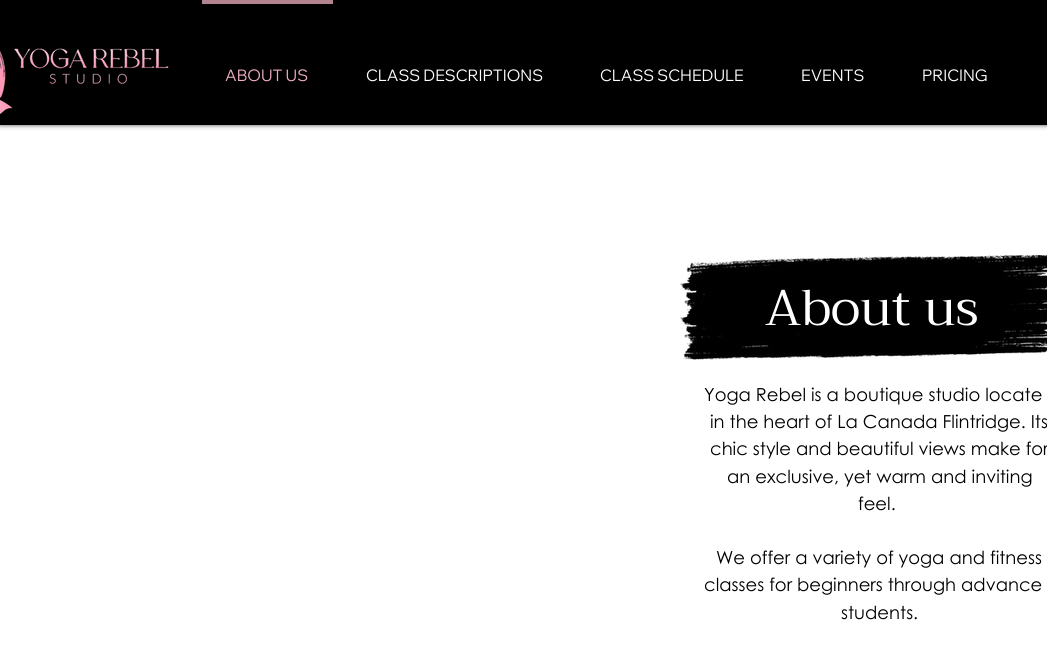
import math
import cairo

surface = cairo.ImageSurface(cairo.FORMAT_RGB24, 1047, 656)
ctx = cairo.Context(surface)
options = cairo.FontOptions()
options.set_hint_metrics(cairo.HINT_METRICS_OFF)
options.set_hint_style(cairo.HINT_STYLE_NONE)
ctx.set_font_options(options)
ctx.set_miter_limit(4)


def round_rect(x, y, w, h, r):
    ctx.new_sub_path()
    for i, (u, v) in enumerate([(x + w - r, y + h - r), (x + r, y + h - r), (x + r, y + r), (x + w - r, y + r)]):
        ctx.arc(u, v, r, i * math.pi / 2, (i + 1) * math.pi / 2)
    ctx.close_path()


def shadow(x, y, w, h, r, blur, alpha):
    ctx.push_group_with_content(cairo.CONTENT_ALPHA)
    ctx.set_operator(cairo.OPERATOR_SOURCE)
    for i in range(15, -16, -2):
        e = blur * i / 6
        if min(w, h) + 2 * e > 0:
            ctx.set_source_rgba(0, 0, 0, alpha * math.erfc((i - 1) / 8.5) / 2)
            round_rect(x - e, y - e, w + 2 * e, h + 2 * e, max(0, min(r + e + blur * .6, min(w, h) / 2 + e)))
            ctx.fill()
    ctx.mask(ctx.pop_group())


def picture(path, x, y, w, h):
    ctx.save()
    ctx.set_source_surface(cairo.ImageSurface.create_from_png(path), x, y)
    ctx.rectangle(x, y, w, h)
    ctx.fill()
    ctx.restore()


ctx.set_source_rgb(1, 1, 1)
ctx.paint()
ctx.set_source_rgb(0, 0, 0)
shadow(0, 0, 1047, 125, 0, 2.5, 0.7)
ctx.set_source_rgb(0, 0, 0)
ctx.rectangle(0, 0, 1047, 125)
ctx.fill()
picture("img1.png", 0, 50, 12, 64)
picture("img2.png", 14, 48, 155, 36)
ctx.set_source_rgb(0.702, 0.514, 0.565)
ctx.rectangle(202, 0, 131, 4)
ctx.fill()
ctx.select_font_face("Wix Madefor Display")
ctx.set_font_size(16)
ctx.set_source_rgb(0.945, 0.682, 0.757)
ctx.move_to(225, 81)
ctx.show_text("ABOUT US")
ctx.set_source_rgb(1, 1, 1)
ctx.move_to(366, 81)
ctx.show_text("CLASS DESCRIPTIONS")
ctx.move_to(600, 81)
ctx.show_text("CLASS SCHEDULE")
ctx.move_to(801, 81)
ctx.show_text("EVENTS")
ctx.move_to(922, 81)
ctx.show_text("PRICING")
picture("img3.png", 680, 255, 367, 71)
picture("img4.png", 680, 289, 367, 71)
ctx.select_font_face("Trirong")
ctx.set_font_size(50)
ctx.move_to(765, 325)
ctx.show_text("About us")
ctx.select_font_face("Century Gothic")
ctx.set_font_size(18)
ctx.set_source_rgb(0, 0, 0)
ctx.move_to(704, 401)
ctx.show_text("Yoga Rebel is a boutique studio locate")
ctx.move_to(710, 428)
ctx.show_text("in the heart of La Canada Flintridge. Its")
ctx.move_to(710, 455)
ctx.show_text("chic style and beautiful views make for")
ctx.move_to(727, 483)
ctx.show_text("an exclusive, yet warm and inviting")
ctx.move_to(858, 510)
ctx.show_text("feel.")
ctx.move_to(716, 564)
ctx.show_text("We offer a variety of yoga and fitness")
ctx.move_to(704, 591)
ctx.show_text("classes for beginners through advance")
ctx.move_to(841, 619)
ctx.show_text("students.")
surface.write_to_png("page.png")
